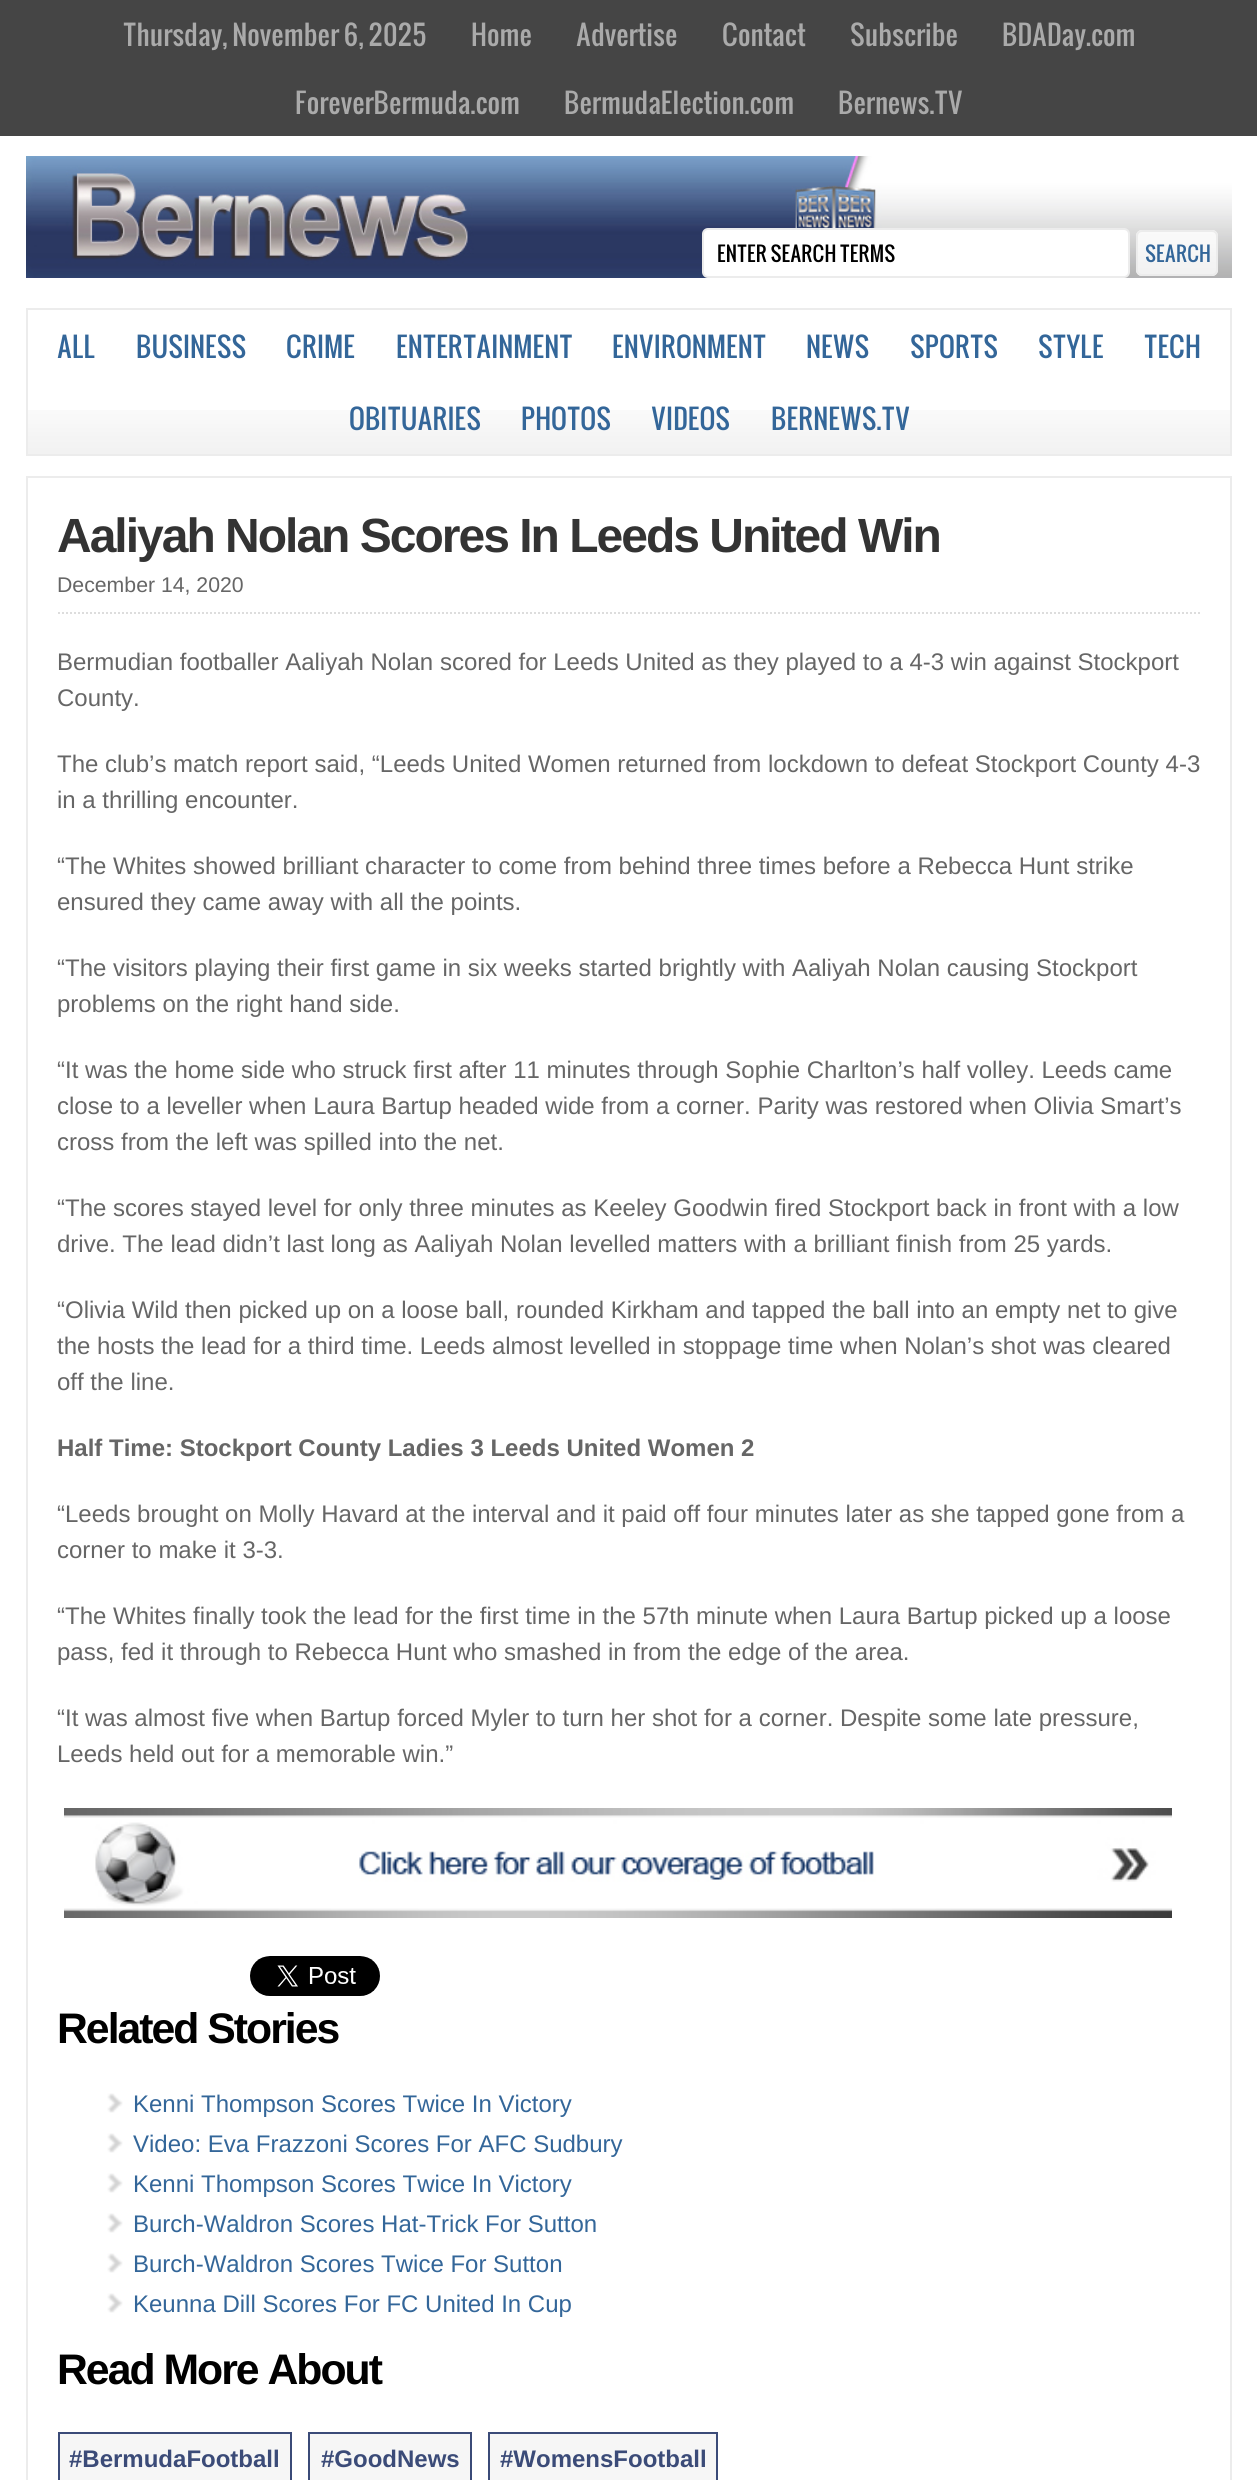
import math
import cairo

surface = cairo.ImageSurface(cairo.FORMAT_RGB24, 1257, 2480)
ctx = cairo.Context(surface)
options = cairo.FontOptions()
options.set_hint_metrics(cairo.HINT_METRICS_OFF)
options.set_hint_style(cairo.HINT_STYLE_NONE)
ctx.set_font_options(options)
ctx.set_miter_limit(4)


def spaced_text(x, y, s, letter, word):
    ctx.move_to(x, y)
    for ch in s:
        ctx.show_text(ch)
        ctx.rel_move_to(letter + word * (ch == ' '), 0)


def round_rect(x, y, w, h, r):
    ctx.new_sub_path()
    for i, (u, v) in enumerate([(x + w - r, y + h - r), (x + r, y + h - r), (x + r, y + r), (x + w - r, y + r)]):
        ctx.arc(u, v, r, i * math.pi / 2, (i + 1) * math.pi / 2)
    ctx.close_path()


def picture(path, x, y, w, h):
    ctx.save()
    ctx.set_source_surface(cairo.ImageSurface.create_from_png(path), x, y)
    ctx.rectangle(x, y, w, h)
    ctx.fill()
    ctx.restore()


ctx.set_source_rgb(0.271, 0.271, 0.271)
ctx.paint()
ctx.select_font_face("Oswald")
ctx.set_font_size(26.75)
ctx.set_source_rgb(0.667, 0.667, 0.667)
ctx.move_to(123, 46)
ctx.show_text("Thursday, November 6, 2025")
ctx.move_to(471, 46)
ctx.show_text("Home")
ctx.move_to(576, 46)
ctx.show_text("Advertise")
ctx.move_to(722, 46)
ctx.show_text("Contact")
ctx.move_to(850, 46)
ctx.show_text("Subscribe")
ctx.move_to(1002, 46)
ctx.show_text("BDADay.com")
ctx.move_to(295, 114)
ctx.show_text("ForeverBermuda.com")
ctx.move_to(564, 114)
ctx.show_text("BermudaElection.com")
ctx.move_to(838, 114)
ctx.show_text("Bernews.TV")
ctx.set_source_rgb(1, 1, 1)
ctx.rectangle(0, 136, 1257, 2344)
ctx.fill()
picture("img1.png", 26, 156, 1206, 122)
round_rect(703, 229, 426, 48, 5)
ctx.fill_preserve()
ctx.set_source_rgb(0.922, 0.922, 0.922)
ctx.stroke()
ctx.set_font_size(20)
ctx.set_source_rgb(0, 0, 0)
ctx.move_to(717, 262)
ctx.show_text("ENTER SEARCH TERMS")
ctx.set_source_rgb(1, 1, 1)
round_rect(1136, 230, 82, 46, 6)
ctx.fill()
picture("img2.png", 1136, 230, 82, 44)
round_rect(1137, 231, 80, 44, 5)
ctx.set_source_rgb(0.922, 0.922, 0.922)
ctx.stroke()
ctx.set_source_rgb(0.2, 0.4, 0.6)
ctx.move_to(1145, 262)
ctx.show_text("SEARCH")
picture("img3.png", 28, 410, 1202, 44)
ctx.rectangle(27, 309, 1204, 146)
ctx.set_source_rgb(0.922, 0.922, 0.922)
ctx.stroke()
ctx.set_font_size(26.75)
ctx.set_source_rgb(0.2, 0.4, 0.6)
ctx.move_to(57, 358)
ctx.show_text("ALL")
ctx.move_to(136, 358)
ctx.show_text("BUSINESS")
ctx.move_to(286, 358)
ctx.show_text("CRIME")
ctx.move_to(396, 358)
ctx.show_text("ENTERTAINMENT")
ctx.move_to(612, 358)
ctx.show_text("ENVIRONMENT")
ctx.move_to(806, 358)
ctx.show_text("NEWS")
ctx.move_to(910, 358)
ctx.show_text("SPORTS")
ctx.move_to(1038, 358)
ctx.show_text("STYLE")
ctx.move_to(1144, 358)
ctx.show_text("TECH")
ctx.move_to(349, 430)
ctx.show_text("OBITUARIES")
ctx.move_to(521, 430)
ctx.show_text("PHOTOS")
ctx.move_to(651, 430)
ctx.show_text("VIDEOS")
ctx.move_to(771, 430)
ctx.show_text("BERNEWS.TV")
ctx.rectangle(27, 477, 1204, 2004)
ctx.set_source_rgb(0.922, 0.922, 0.922)
ctx.stroke()
ctx.select_font_face("Liberation Sans", cairo.FONT_SLANT_NORMAL, cairo.FONT_WEIGHT_BOLD)
ctx.set_font_size(48)
ctx.set_source_rgb(0.2, 0.2, 0.2)
spaced_text(57, 552, "Aaliyah Nolan Scores In Leeds United Win", -2, 0)
ctx.new_path()
ctx.move_to(58, 613)
ctx.line_to(1200, 613)
ctx.set_source_rgb(0.867, 0.867, 0.867)
ctx.set_dash([2, 2])
ctx.stroke()
ctx.select_font_face("Liberation Sans")
ctx.set_font_size(21.25)
ctx.set_source_rgb(0.4, 0.4, 0.4)
ctx.move_to(57, 592)
ctx.show_text("December 14, 2020")
ctx.set_font_size(24)
ctx.move_to(57, 670)
ctx.show_text("Bermudian footballer Aaliyah Nolan scored for Leeds United as they played to a 4-3 win against Stockport")
ctx.move_to(57, 706)
ctx.show_text("County.")
ctx.move_to(57, 772)
ctx.show_text("The club’s match report said, “Leeds United Women returned from lockdown to defeat Stockport County 4-3")
ctx.move_to(57, 808)
ctx.show_text("in a thrilling encounter.")
ctx.move_to(57, 874)
ctx.show_text("“The Whites showed brilliant character to come from behind three times before a Rebecca Hunt strike")
ctx.move_to(57, 910)
ctx.show_text("ensured they came away with all the points.")
ctx.move_to(57, 976)
ctx.show_text("“The visitors playing their first game in six weeks started brightly with Aaliyah Nolan causing Stockport")
ctx.move_to(57, 1012)
ctx.show_text("problems on the right hand side.")
ctx.move_to(57, 1078)
ctx.show_text("“It was the home side who struck first after 11 minutes through Sophie Charlton’s half volley. Leeds came")
ctx.move_to(57, 1114)
ctx.show_text("close to a leveller when Laura Bartup headed wide from a corner. Parity was restored when Olivia Smart’s")
ctx.move_to(57, 1150)
ctx.show_text("cross from the left was spilled into the net.")
ctx.move_to(57, 1216)
ctx.show_text("“The scores stayed level for only three minutes as Keeley Goodwin fired Stockport back in front with a low")
ctx.move_to(57, 1252)
ctx.show_text("drive. The lead didn’t last long as Aaliyah Nolan levelled matters with a brilliant finish from 25 yards.")
ctx.move_to(57, 1318)
ctx.show_text("“Olivia Wild then picked up on a loose ball, rounded Kirkham and tapped the ball into an empty net to give")
ctx.move_to(57, 1354)
ctx.show_text("the hosts the lead for a third time. Leeds almost levelled in stoppage time when Nolan’s shot was cleared")
ctx.move_to(57, 1390)
ctx.show_text("off the line.")
ctx.select_font_face("Liberation Sans", cairo.FONT_SLANT_NORMAL, cairo.FONT_WEIGHT_BOLD)
ctx.move_to(57, 1456)
ctx.show_text("Half Time: Stockport County Ladies 3 Leeds United Women 2")
ctx.select_font_face("Liberation Sans")
ctx.move_to(57, 1522)
ctx.show_text("“Leeds brought on Molly Havard at the interval and it paid off four minutes later as she tapped gone from a")
ctx.move_to(57, 1558)
ctx.show_text("corner to make it 3-3.")
ctx.move_to(57, 1624)
ctx.show_text("“The Whites finally took the lead for the first time in the 57th minute when Laura Bartup picked up a loose")
ctx.move_to(57, 1660)
ctx.show_text("pass, fed it through to Rebecca Hunt who smashed in from the edge of the area.")
ctx.move_to(57, 1726)
ctx.show_text("“It was almost five when Bartup forced Myler to turn her shot for a corner. Despite some late pressure,")
ctx.move_to(57, 1762)
ctx.show_text("Leeds held out for a memorable win.”")
picture("img4.png", 64, 1808, 1108, 110)
picture("img5.png", 250, 1956, 130, 40)
ctx.select_font_face("Liberation Sans", cairo.FONT_SLANT_NORMAL, cairo.FONT_WEIGHT_BOLD)
ctx.set_font_size(42.75)
ctx.set_source_rgb(0, 0, 0)
spaced_text(57, 2043, "Related Stories", -2, 0)
picture("img6.png", 107, 2093, 16, 20)
ctx.select_font_face("Liberation Sans")
ctx.set_font_size(24)
ctx.set_source_rgb(0.2, 0.4, 0.6)
ctx.move_to(133, 2112)
ctx.show_text("Kenni Thompson Scores Twice In Victory")
picture("img6.png", 107, 2133, 16, 20)
ctx.move_to(133, 2152)
ctx.show_text("Video: Eva Frazzoni Scores For AFC Sudbury")
picture("img6.png", 107, 2173, 16, 20)
ctx.move_to(133, 2192)
ctx.show_text("Kenni Thompson Scores Twice In Victory")
picture("img6.png", 107, 2213, 16, 20)
ctx.move_to(133, 2232)
ctx.show_text("Burch-Waldron Scores Hat-Trick For Sutton")
picture("img6.png", 107, 2253, 16, 20)
ctx.move_to(133, 2272)
ctx.show_text("Burch-Waldron Scores Twice For Sutton")
picture("img6.png", 107, 2293, 16, 20)
ctx.move_to(133, 2312)
ctx.show_text("Keunna Dill Scores For FC United In Cup")
ctx.select_font_face("Liberation Sans", cairo.FONT_SLANT_NORMAL, cairo.FONT_WEIGHT_BOLD)
ctx.set_font_size(42.75)
ctx.set_source_rgb(0, 0, 0)
spaced_text(57, 2384, "Read More About", -2, 0)
ctx.set_source_rgb(0.961, 0.961, 0.961)
ctx.rectangle(59, 2433, 232, 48)
ctx.fill_preserve()
ctx.set_source_rgb(0.231, 0.294, 0.471)
ctx.set_dash([])
ctx.stroke()
ctx.set_font_size(24)
ctx.move_to(69, 2467)
ctx.show_text("#BermudaFootball")
ctx.set_source_rgb(0.961, 0.961, 0.961)
ctx.rectangle(309, 2433, 162, 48)
ctx.fill_preserve()
ctx.set_source_rgb(0.231, 0.294, 0.471)
ctx.stroke()
ctx.move_to(321, 2467)
ctx.show_text("#GoodNews")
ctx.set_source_rgb(0.961, 0.961, 0.961)
ctx.rectangle(489, 2433, 228, 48)
ctx.fill_preserve()
ctx.set_source_rgb(0.231, 0.294, 0.471)
ctx.stroke()
ctx.move_to(500, 2467)
ctx.show_text("#WomensFootball")
surface.write_to_png("page.png")
